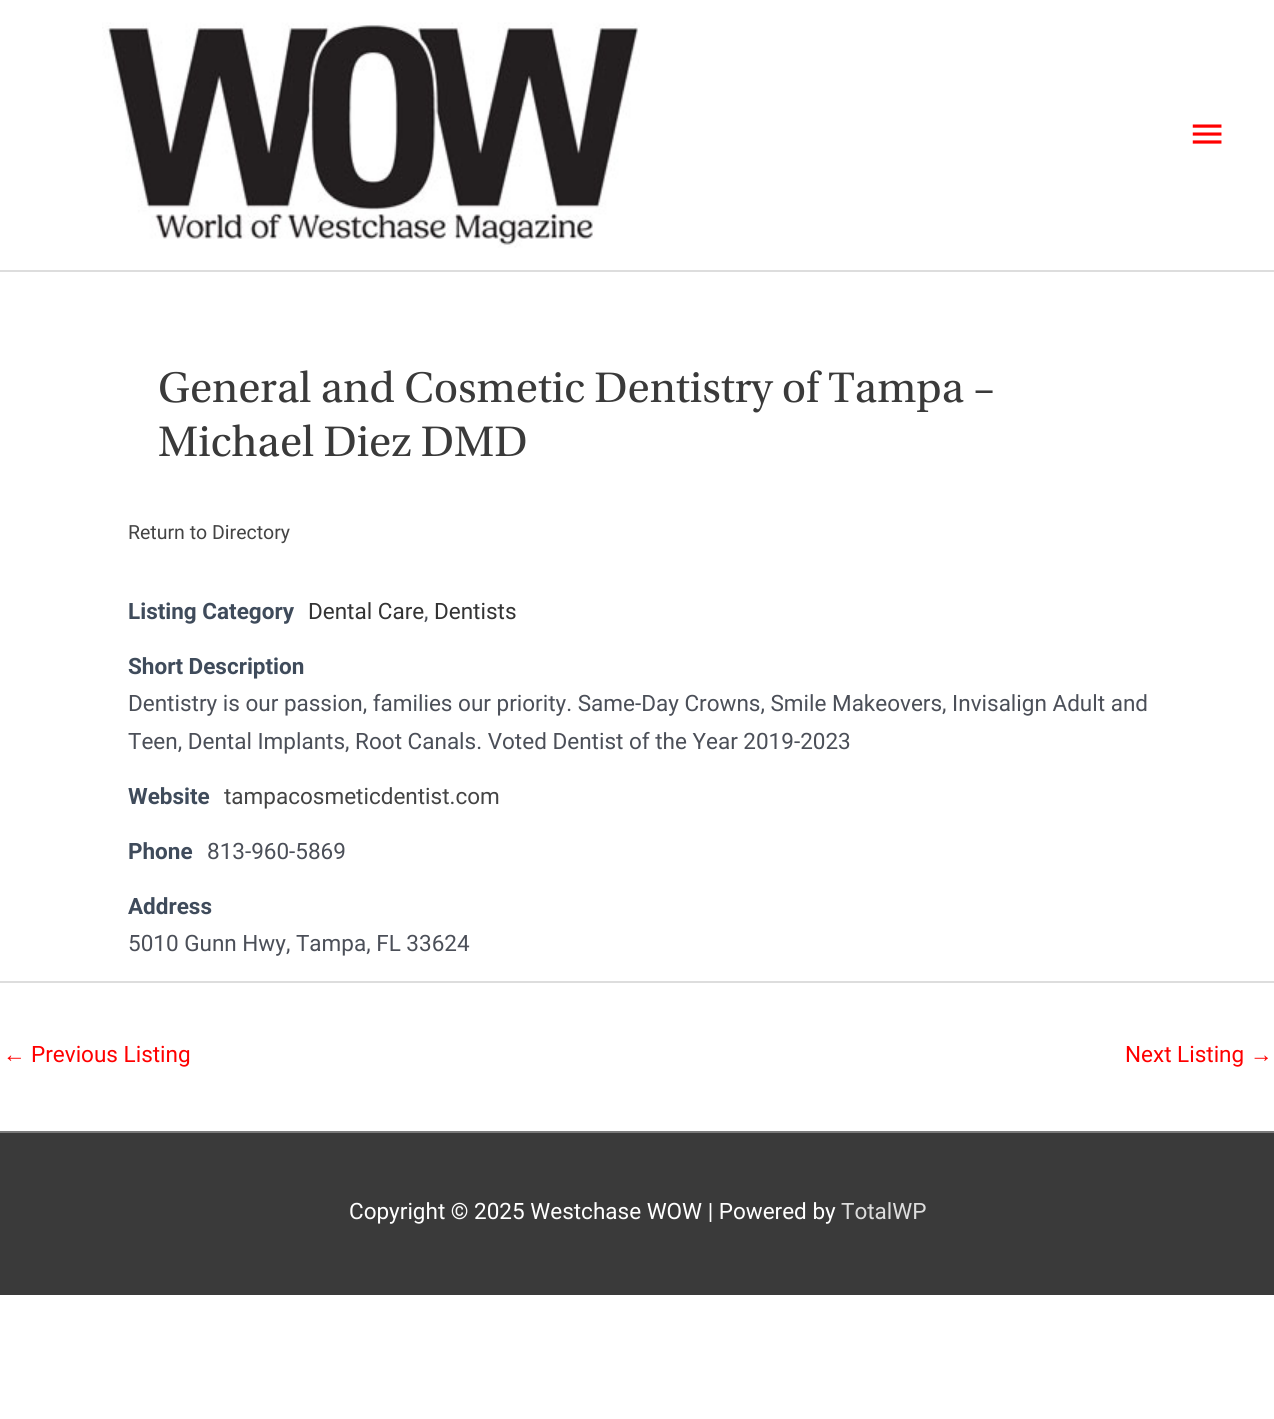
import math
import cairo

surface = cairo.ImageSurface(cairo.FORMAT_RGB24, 1274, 1419)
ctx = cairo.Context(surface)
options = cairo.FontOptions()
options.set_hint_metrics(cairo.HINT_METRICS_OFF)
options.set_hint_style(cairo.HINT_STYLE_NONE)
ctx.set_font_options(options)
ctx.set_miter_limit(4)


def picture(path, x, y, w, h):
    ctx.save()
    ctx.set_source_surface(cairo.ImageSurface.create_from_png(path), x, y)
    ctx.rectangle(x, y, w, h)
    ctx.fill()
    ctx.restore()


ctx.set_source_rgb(1, 1, 1)
ctx.paint()
ctx.set_source_rgb(0.867, 0.867, 0.867)
ctx.rectangle(0, 270, 1274, 2)
ctx.fill()
picture("img1.png", 102, 22, 538, 226)
picture("img2.png", 1192, 124, 30, 20)
ctx.select_font_face("Utopia")
ctx.set_font_size(45)
ctx.set_source_rgb(0.227, 0.227, 0.227)
ctx.move_to(158, 402)
ctx.show_text("General and Cosmetic Dentistry of Tampa –")
ctx.move_to(158, 456)
ctx.show_text("Michael Diez DMD")
ctx.select_font_face("Roboto")
ctx.set_font_size(19.5)
ctx.set_source_rgb(0.267, 0.267, 0.267)
ctx.move_to(128, 539)
ctx.show_text("Return to Directory")
ctx.select_font_face("Roboto", cairo.FONT_SLANT_NORMAL, cairo.FONT_WEIGHT_BOLD)
ctx.set_font_size(22.5)
ctx.set_source_rgb(0.247, 0.294, 0.357)
ctx.move_to(128, 619)
ctx.show_text("Listing Category")
ctx.select_font_face("Roboto")
ctx.set_source_rgb(0.2, 0.2, 0.2)
ctx.move_to(308, 619)
ctx.show_text("Dental Care")
ctx.set_source_rgb(0.294, 0.31, 0.345)
ctx.move_to(424, 619)
ctx.show_text(",")
ctx.set_source_rgb(0.2, 0.2, 0.2)
ctx.move_to(434, 619)
ctx.show_text("Dentists")
ctx.select_font_face("Roboto", cairo.FONT_SLANT_NORMAL, cairo.FONT_WEIGHT_BOLD)
ctx.set_source_rgb(0.247, 0.294, 0.357)
ctx.move_to(128, 674)
ctx.show_text("Short Description")
ctx.select_font_face("Roboto")
ctx.set_source_rgb(0.294, 0.31, 0.345)
ctx.move_to(128, 711)
ctx.show_text("Dentistry is our passion, families our priority. Same-Day Crowns, Smile Makeovers, Invisalign Adult and")
ctx.move_to(128, 749)
ctx.show_text("Teen, Dental Implants, Root Canals. Voted Dentist of the Year 2019-2023")
ctx.select_font_face("Roboto", cairo.FONT_SLANT_NORMAL, cairo.FONT_WEIGHT_BOLD)
ctx.set_source_rgb(0.247, 0.294, 0.357)
ctx.move_to(128, 804)
ctx.show_text("Website")
ctx.select_font_face("Roboto")
ctx.set_source_rgb(0.267, 0.267, 0.267)
ctx.move_to(224, 804)
ctx.show_text("tampacosmeticdentist.com")
ctx.select_font_face("Roboto", cairo.FONT_SLANT_NORMAL, cairo.FONT_WEIGHT_BOLD)
ctx.set_source_rgb(0.247, 0.294, 0.357)
ctx.move_to(128, 859)
ctx.show_text("Phone")
ctx.select_font_face("Roboto")
ctx.set_source_rgb(0.294, 0.31, 0.345)
ctx.move_to(207, 859)
ctx.show_text("813-960-5869")
ctx.select_font_face("Roboto", cairo.FONT_SLANT_NORMAL, cairo.FONT_WEIGHT_BOLD)
ctx.set_source_rgb(0.247, 0.294, 0.357)
ctx.move_to(128, 914)
ctx.show_text("Address")
ctx.select_font_face("Roboto")
ctx.set_source_rgb(0.294, 0.31, 0.345)
ctx.move_to(128, 951)
ctx.show_text("5010 Gunn Hwy, Tampa, FL 33624")
ctx.set_source_rgb(0.867, 0.867, 0.867)
ctx.rectangle(0, 981, 1274, 2)
ctx.fill()
ctx.select_font_face("Liberation Sans")
ctx.set_source_rgb(1, 0, 0)
ctx.move_to(3, 1062)
ctx.show_text("←")
ctx.select_font_face("Roboto")
ctx.move_to(31, 1062)
ctx.show_text("Previous Listing")
ctx.move_to(1125, 1062)
ctx.show_text("Next Listing")
ctx.select_font_face("Liberation Sans")
ctx.move_to(1250, 1062)
ctx.show_text("→")
ctx.set_source_rgb(0.478, 0.478, 0.478)
ctx.rectangle(0, 1131, 1274, 2)
ctx.fill()
ctx.set_source_rgb(0.227, 0.227, 0.227)
ctx.rectangle(0, 1133, 1274, 162)
ctx.fill()
ctx.select_font_face("Roboto")
ctx.set_source_rgb(1, 1, 1)
ctx.move_to(349, 1219)
ctx.show_text("Copyright © 2025 Westchase WOW | Powered by")
ctx.set_source_rgb(0.867, 0.867, 0.867)
ctx.move_to(841, 1219)
ctx.show_text("TotalWP")
surface.write_to_png("page.png")
